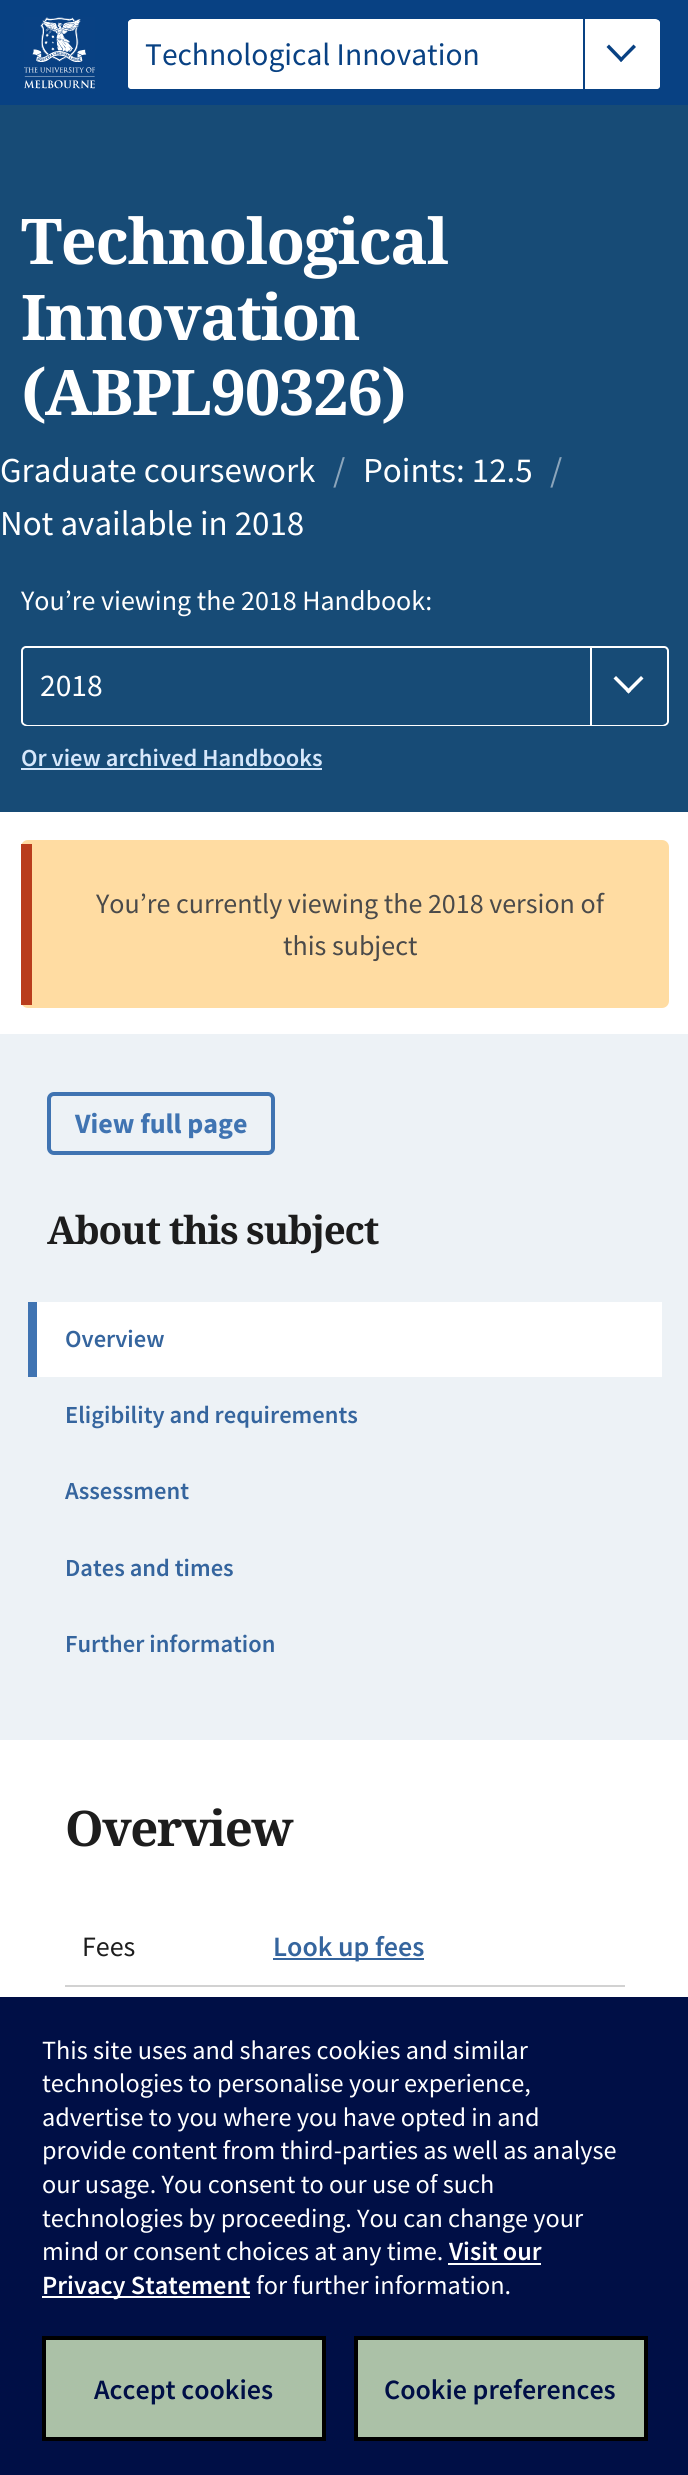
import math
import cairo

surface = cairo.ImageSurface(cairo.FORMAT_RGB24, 688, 2475)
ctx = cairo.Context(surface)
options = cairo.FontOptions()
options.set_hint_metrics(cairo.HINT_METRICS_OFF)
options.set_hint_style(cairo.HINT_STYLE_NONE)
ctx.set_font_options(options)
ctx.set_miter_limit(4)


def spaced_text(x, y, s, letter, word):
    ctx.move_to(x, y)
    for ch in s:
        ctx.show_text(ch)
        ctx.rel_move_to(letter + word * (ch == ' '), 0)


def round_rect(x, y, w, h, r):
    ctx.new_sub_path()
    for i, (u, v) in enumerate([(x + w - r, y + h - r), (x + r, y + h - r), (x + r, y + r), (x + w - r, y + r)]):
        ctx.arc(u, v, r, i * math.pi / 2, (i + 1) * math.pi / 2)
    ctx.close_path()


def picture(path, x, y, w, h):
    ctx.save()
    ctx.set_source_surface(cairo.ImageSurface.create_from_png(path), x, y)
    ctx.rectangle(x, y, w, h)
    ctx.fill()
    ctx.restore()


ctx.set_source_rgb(1, 1, 1)
ctx.paint()
ctx.set_source_rgb(0.035, 0.255, 0.514)
ctx.rectangle(0, 0, 688, 105)
ctx.fill()
picture("img1.png", 24, 17, 71, 72)
ctx.set_source_rgb(1, 1, 1)
round_rect(127, 19, 534, 71, 4)
ctx.fill_preserve()
ctx.set_source_rgb(0.035, 0.255, 0.514)
ctx.stroke()
ctx.set_source_rgb(1, 1, 1)
round_rect(128, 19, 532, 70, 5)
ctx.fill()
ctx.select_font_face("Source Sans Pro")
ctx.set_font_size(31.5)
ctx.set_source_rgb(0.035, 0.255, 0.514)
ctx.move_to(145, 65)
ctx.show_text("Technological Innovation")
ctx.rectangle(583, 19, 2, 70)
ctx.fill()
ctx.new_path()
ctx.move_to(633.5, 44.5)
ctx.line_to(636, 47)
ctx.line_to(621, 62)
ctx.line_to(619, 59.5)
ctx.close_path()
ctx.fill()
ctx.new_path()
ctx.move_to(609, 44.5)
ctx.line_to(623.5, 59.5)
ctx.line_to(621, 62)
ctx.line_to(606.5, 47)
ctx.close_path()
ctx.fill()
ctx.set_source_rgb(0.09, 0.294, 0.463)
ctx.rectangle(0, 105, 688, 707)
ctx.fill()
ctx.select_font_face("Noto Serif", cairo.FONT_SLANT_NORMAL, cairo.FONT_WEIGHT_BOLD)
ctx.set_font_size(63)
ctx.set_source_rgb(1, 1, 1)
spaced_text(21, 264, "Technological", -1.4, 0)
spaced_text(21, 340, "Innovation", -1.4, 0)
spaced_text(21, 415, "(ABPL90326)", -1.4, 0)
ctx.select_font_face("Source Sans Pro")
ctx.set_font_size(35)
ctx.move_to(0, 482)
ctx.show_text("Graduate coursework")
ctx.set_source_rgb(0.545, 0.647, 0.733)
ctx.move_to(333, 482)
ctx.show_text("/")
ctx.set_source_rgb(1, 1, 1)
ctx.move_to(363, 482)
ctx.show_text("Points: 12.5")
ctx.set_source_rgb(0.545, 0.647, 0.733)
ctx.move_to(550, 482)
ctx.show_text("/")
ctx.set_source_rgb(1, 1, 1)
ctx.move_to(0, 535)
ctx.show_text("Not available in 2018")
ctx.set_font_size(28)
ctx.move_to(21, 610)
ctx.show_text("You’re viewing the 2018 Handbook:")
round_rect(22, 647, 646, 78, 4)
ctx.stroke()
ctx.set_source_rgb(0.09, 0.294, 0.463)
round_rect(23, 648, 644, 77, 5)
ctx.fill()
ctx.set_font_size(31.5)
ctx.set_source_rgb(1, 1, 1)
ctx.move_to(40, 696)
ctx.show_text("2018")
ctx.rectangle(590, 648, 2, 77)
ctx.fill()
ctx.new_path()
ctx.move_to(641, 676)
ctx.line_to(643.5, 678.5)
ctx.line_to(628.5, 693.5)
ctx.line_to(626, 691)
ctx.close_path()
ctx.fill()
ctx.new_path()
ctx.move_to(616, 676)
ctx.line_to(631, 691)
ctx.line_to(628.5, 693.5)
ctx.line_to(613.5, 678.5)
ctx.close_path()
ctx.fill()
ctx.select_font_face("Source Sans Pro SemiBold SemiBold")
ctx.set_font_size(24.5)
ctx.set_source_rgb(0.839, 0.906, 0.984)
ctx.move_to(21, 766)
ctx.show_text("Or view archived Handbooks")
ctx.rectangle(21, 768, 301, 2)
ctx.fill()
ctx.set_source_rgb(1, 0.863, 0.635)
round_rect(21, 840, 648, 168, 7)
ctx.fill()
ctx.set_source_rgb(0.725, 0.239, 0.11)
ctx.rectangle(21, 844, 11, 161)
ctx.fill()
ctx.select_font_face("Source Sans Pro")
ctx.set_font_size(28)
ctx.set_source_rgb(0.29, 0.29, 0.29)
ctx.move_to(96, 913)
ctx.show_text("You’re currently viewing the 2018 version of")
ctx.move_to(283, 955)
ctx.show_text("this subject")
ctx.set_source_rgb(0.929, 0.949, 0.961)
ctx.rectangle(0, 1034, 688, 706)
ctx.fill()
round_rect(49, 1094, 224, 59, 5)
ctx.set_source_rgb(0.251, 0.455, 0.698)
ctx.set_line_width(4)
ctx.stroke()
ctx.select_font_face("Source Sans Pro", cairo.FONT_SLANT_NORMAL, cairo.FONT_WEIGHT_BOLD)
ctx.move_to(75, 1133)
ctx.show_text("View full page")
ctx.select_font_face("Noto Serif", cairo.FONT_SLANT_NORMAL, cairo.FONT_WEIGHT_BOLD)
ctx.set_font_size(38.5)
ctx.set_source_rgb(0.114, 0.114, 0.114)
spaced_text(47, 1244, "About this subject", -1.2, 0)
ctx.set_source_rgb(1, 1, 1)
ctx.rectangle(37, 1302, 625, 75)
ctx.fill()
ctx.set_source_rgb(0.251, 0.455, 0.698)
ctx.rectangle(28, 1302, 9, 75)
ctx.fill()
ctx.select_font_face("Source Sans Pro SemiBold SemiBold")
ctx.set_font_size(24.5)
ctx.set_source_rgb(0.208, 0.396, 0.62)
ctx.move_to(65, 1347)
ctx.show_text("Overview")
ctx.move_to(65, 1423)
ctx.show_text("Eligibility and requirements")
ctx.move_to(65, 1499)
ctx.show_text("Assessment")
ctx.move_to(65, 1576)
ctx.show_text("Dates and times")
ctx.move_to(65, 1652)
ctx.show_text("Further information")
ctx.select_font_face("Noto Serif", cairo.FONT_SLANT_NORMAL, cairo.FONT_WEIGHT_BOLD)
ctx.set_font_size(49)
ctx.set_source_rgb(0.114, 0.114, 0.114)
spaced_text(65, 1846, "Overview", -1.5, 0)
ctx.set_source_rgb(0.824, 0.824, 0.824)
ctx.rectangle(65, 1985, 560, 2)
ctx.fill()
ctx.select_font_face("Source Sans Pro")
ctx.set_font_size(28)
ctx.set_source_rgb(0.114, 0.114, 0.114)
ctx.move_to(82, 1956)
ctx.show_text("Fees")
ctx.set_source_rgb(0.208, 0.396, 0.62)
ctx.rectangle(273, 1958, 151, 2)
ctx.fill()
ctx.select_font_face("Source Sans Pro SemiBold SemiBold")
ctx.move_to(273, 1956)
ctx.show_text("Look up fees")
ctx.set_source_rgb(0, 0.059, 0.275)
ctx.rectangle(0, 1997, 688, 478)
ctx.fill()
ctx.select_font_face("Source Sans Pro")
ctx.set_font_size(26.25)
ctx.set_source_rgb(1, 1, 1)
ctx.move_to(42, 2059)
ctx.show_text("This site uses and shares cookies and similar")
ctx.move_to(42, 2092)
ctx.show_text("technologies to personalise your experience,")
ctx.move_to(42, 2126)
ctx.show_text("advertise to you where you have opted in and")
ctx.move_to(42, 2159)
ctx.show_text("provide content from third-parties as well as analyse")
ctx.move_to(42, 2193)
ctx.show_text("our usage. You consent to our use of such")
ctx.move_to(42, 2227)
ctx.show_text("technologies by proceeding. You can change your")
ctx.move_to(42, 2260)
ctx.show_text("mind or consent choices at any time.")
ctx.select_font_face("Source Sans Pro SemiBold SemiBold")
ctx.move_to(449, 2260)
ctx.show_text("Visit our")
ctx.rectangle(448, 2263, 93, 2)
ctx.fill()
ctx.rectangle(42, 2296, 208, 2)
ctx.fill()
ctx.move_to(42, 2294)
ctx.show_text("Privacy Statement")
ctx.select_font_face("Source Sans Pro")
ctx.move_to(256, 2294)
ctx.show_text("for further information.")
ctx.set_source_rgb(0.671, 0.757, 0.655)
ctx.rectangle(44, 2338, 280, 101)
ctx.fill_preserve()
ctx.set_source_rgb(0, 0, 0)
ctx.stroke()
ctx.select_font_face("Source Sans Pro SemiBold SemiBold")
ctx.set_font_size(28)
ctx.set_source_rgb(0, 0.059, 0.275)
ctx.move_to(94, 2399)
ctx.show_text("Accept cookies")
ctx.set_source_rgb(0.671, 0.757, 0.655)
ctx.rectangle(356, 2338, 290, 101)
ctx.fill_preserve()
ctx.set_source_rgb(0, 0, 0)
ctx.stroke()
ctx.set_source_rgb(0, 0.059, 0.275)
ctx.move_to(384, 2399)
ctx.show_text("Cookie preferences")
surface.write_to_png("page.png")
